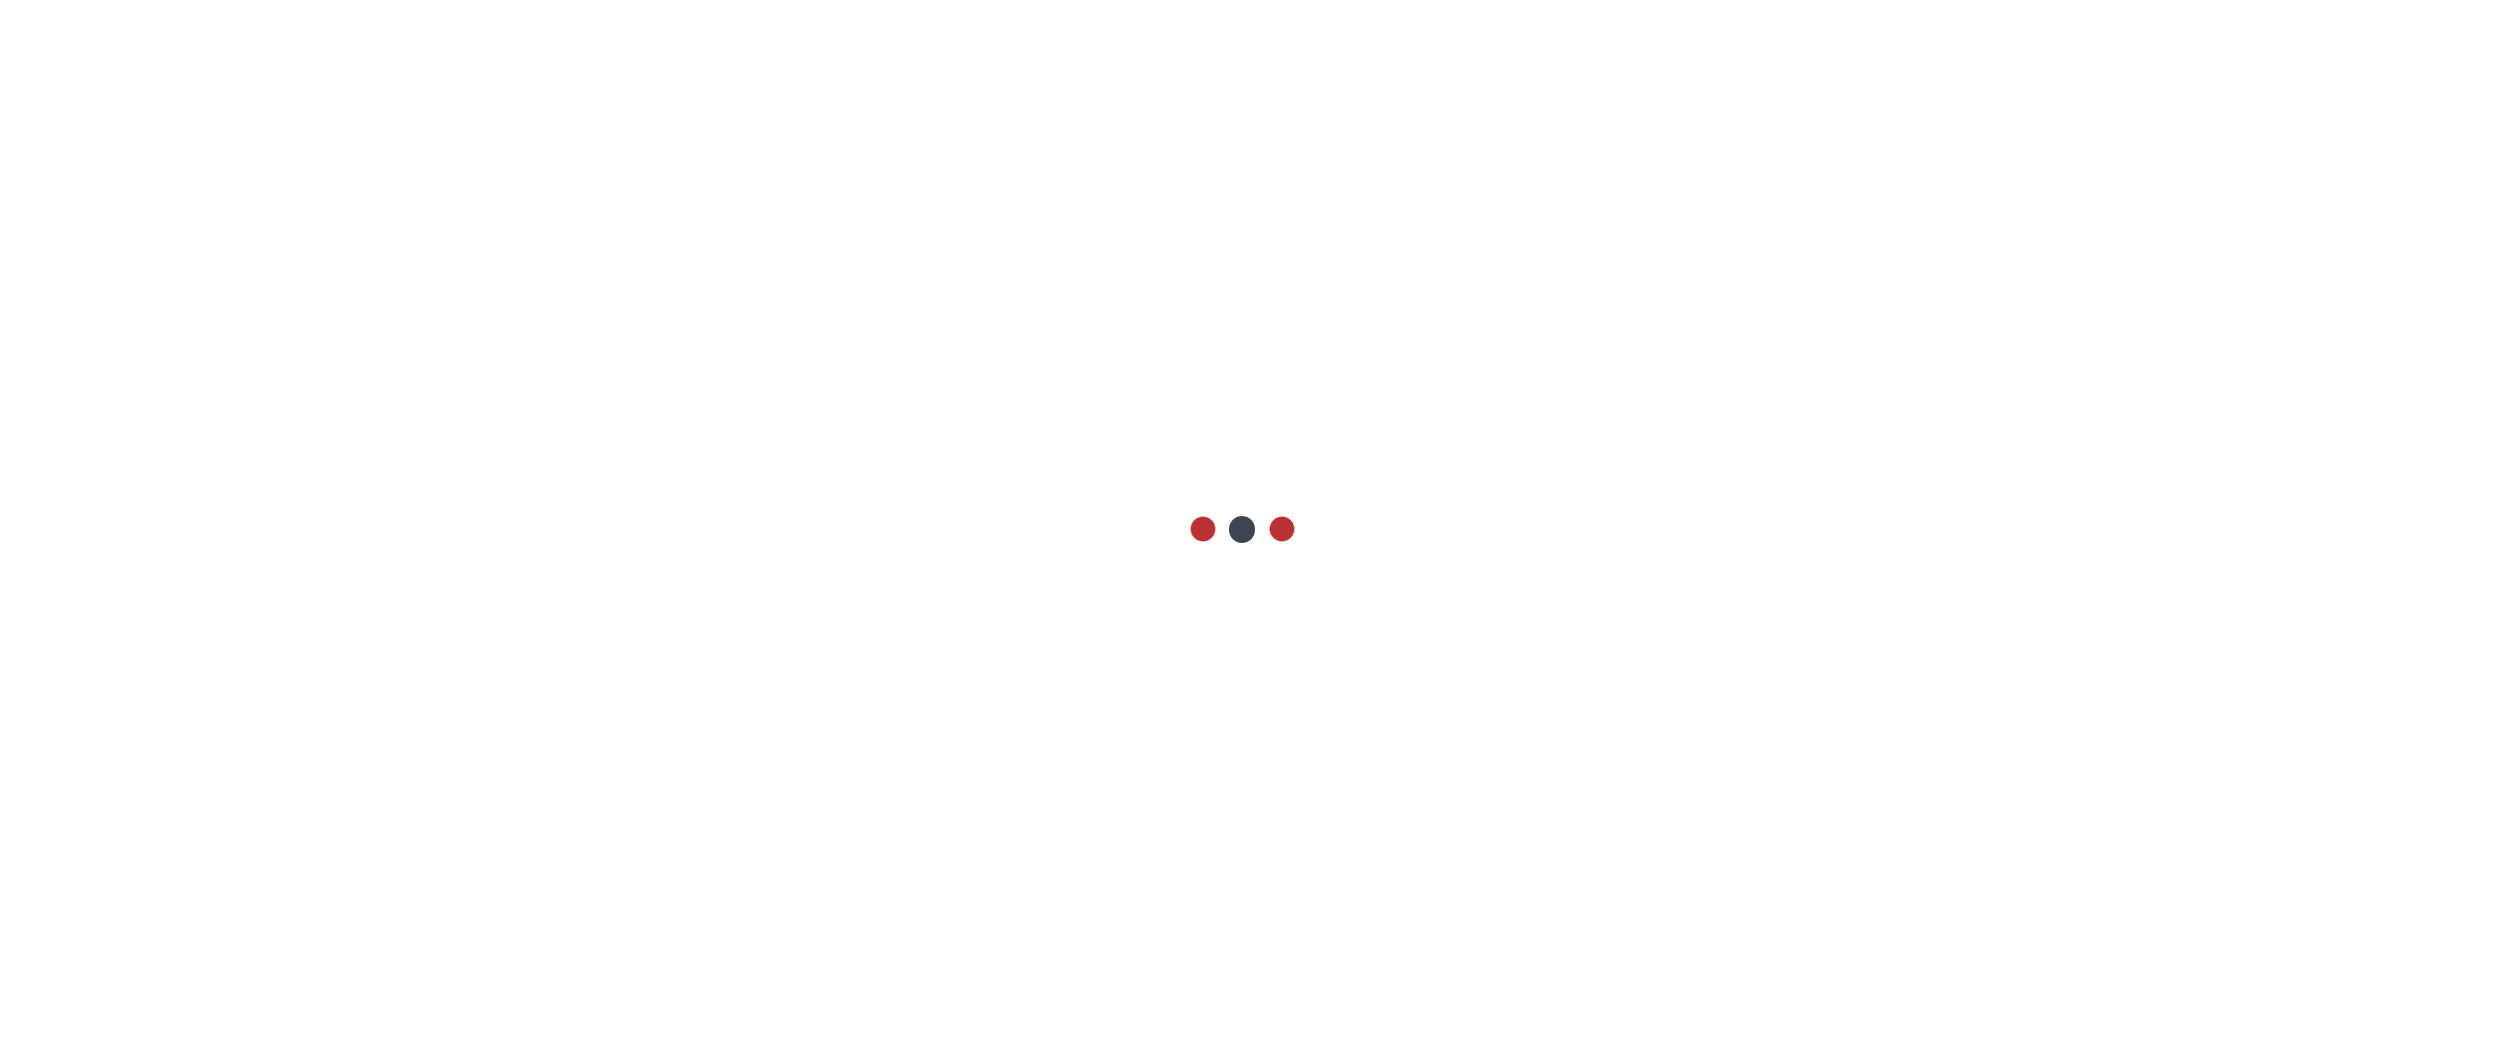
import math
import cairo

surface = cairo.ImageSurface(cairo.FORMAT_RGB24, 2508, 1058)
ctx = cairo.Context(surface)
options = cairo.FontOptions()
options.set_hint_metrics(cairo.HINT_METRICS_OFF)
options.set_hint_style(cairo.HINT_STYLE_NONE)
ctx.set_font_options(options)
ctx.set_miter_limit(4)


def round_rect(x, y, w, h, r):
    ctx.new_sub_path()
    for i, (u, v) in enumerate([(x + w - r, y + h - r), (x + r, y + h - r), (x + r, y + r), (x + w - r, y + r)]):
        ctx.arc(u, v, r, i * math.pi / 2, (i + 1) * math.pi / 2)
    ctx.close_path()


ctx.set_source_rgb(1, 1, 1)
ctx.paint()
gradient = cairo.RadialGradient(1282, 529, 0, 1282, 529, 13)
gradient.add_color_stop_rgba(0.9, 0.733, 0.188, 0.2, 1)
gradient.add_color_stop_rgba(1, 1, 1, 1, 1)
ctx.set_source(gradient)
ctx.rectangle(1269, 516, 26, 26)
ctx.fill()
gradient = cairo.RadialGradient(1203, 529, 0, 1203, 529, 13)
gradient.add_color_stop_rgba(0.9, 0.733, 0.188, 0.2, 1)
gradient.add_color_stop_rgba(1, 1, 1, 1, 1)
ctx.set_source(gradient)
ctx.rectangle(1190, 516, 26, 26)
ctx.fill()
ctx.set_source_rgb(0.239, 0.267, 0.322)
round_rect(1229, 516, 26, 27, 13)
ctx.fill()
surface.write_to_png("page.png")
